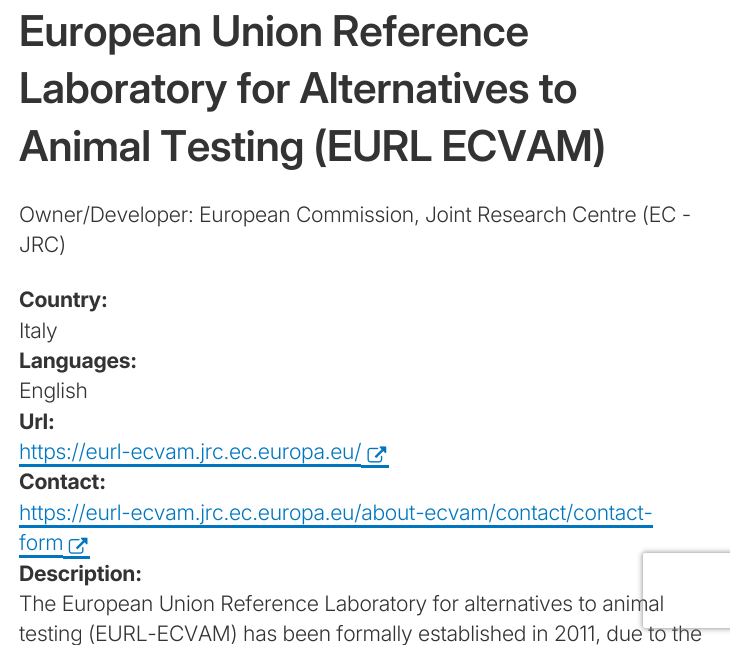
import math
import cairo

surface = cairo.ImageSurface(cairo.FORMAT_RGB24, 730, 645)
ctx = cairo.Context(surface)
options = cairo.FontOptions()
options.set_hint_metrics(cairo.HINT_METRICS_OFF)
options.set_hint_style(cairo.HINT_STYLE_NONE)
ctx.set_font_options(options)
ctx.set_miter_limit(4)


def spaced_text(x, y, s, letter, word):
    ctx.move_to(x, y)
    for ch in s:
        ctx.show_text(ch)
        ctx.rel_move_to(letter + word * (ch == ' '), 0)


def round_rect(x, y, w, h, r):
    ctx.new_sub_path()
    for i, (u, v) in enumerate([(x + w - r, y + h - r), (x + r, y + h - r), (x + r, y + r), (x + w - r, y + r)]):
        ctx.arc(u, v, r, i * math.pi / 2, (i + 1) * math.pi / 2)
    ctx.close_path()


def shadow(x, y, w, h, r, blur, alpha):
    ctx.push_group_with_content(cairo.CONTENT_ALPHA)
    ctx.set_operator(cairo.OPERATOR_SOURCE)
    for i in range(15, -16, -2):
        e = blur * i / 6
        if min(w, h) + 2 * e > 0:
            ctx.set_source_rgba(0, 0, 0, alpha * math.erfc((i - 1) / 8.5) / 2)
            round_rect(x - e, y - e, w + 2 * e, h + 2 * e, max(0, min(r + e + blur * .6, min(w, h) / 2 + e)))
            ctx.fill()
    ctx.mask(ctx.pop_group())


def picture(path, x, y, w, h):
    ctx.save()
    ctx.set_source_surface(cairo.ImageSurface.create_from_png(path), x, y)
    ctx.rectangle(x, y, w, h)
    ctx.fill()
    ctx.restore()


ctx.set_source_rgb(1, 1, 1)
ctx.paint()
ctx.select_font_face("Inter SemiBold")
ctx.set_font_size(42.5)
ctx.set_source_rgb(0.2, 0.2, 0.2)
spaced_text(19, 46, "European Union Reference", -0.25, 0)
spaced_text(19, 103, "Laboratory for Alternatives to", -0.25, 0)
spaced_text(19, 161, "Animal Testing (EURL ECVAM)", -0.25, 0)
ctx.select_font_face("Inter Light")
ctx.set_font_size(21.25)
spaced_text(19, 222, "Owner/Developer: European Commission, Joint Research Centre (EC -", -0.25, 0)
spaced_text(19, 252, "JRC)", -0.25, 0)
ctx.select_font_face("Inter", cairo.FONT_SLANT_NORMAL, cairo.FONT_WEIGHT_BOLD)
spaced_text(19, 307, "Country:", -0.25, 0)
ctx.select_font_face("Inter Light")
spaced_text(19, 338, "Italy", -0.25, 0)
ctx.select_font_face("Inter", cairo.FONT_SLANT_NORMAL, cairo.FONT_WEIGHT_BOLD)
spaced_text(19, 368, "Languages:", -0.25, 0)
ctx.select_font_face("Inter Light")
spaced_text(19, 398, "English", -0.25, 0)
ctx.select_font_face("Inter", cairo.FONT_SLANT_NORMAL, cairo.FONT_WEIGHT_BOLD)
spaced_text(19, 429, "Url:", -0.25, 0)
ctx.select_font_face("Inter Light")
ctx.set_source_rgb(0, 0.463, 0.757)
spaced_text(19, 459, "https://eurl-ecvam.jrc.ec.europa.eu/", -0.25, 0)
ctx.rectangle(19, 464, 342, 3)
ctx.fill()
ctx.rectangle(361, 465, 28, 3)
ctx.fill()
picture("img1.png", 367, 446, 20, 17)
ctx.select_font_face("Inter", cairo.FONT_SLANT_NORMAL, cairo.FONT_WEIGHT_BOLD)
ctx.set_source_rgb(0.2, 0.2, 0.2)
spaced_text(19, 489, "Contact:", -0.25, 0)
ctx.select_font_face("Inter Light")
ctx.set_source_rgb(0, 0.463, 0.757)
spaced_text(19, 520, "https://eurl-ecvam.jrc.ec.europa.eu/about-ecvam/contact/contact-", -0.25, 0)
ctx.rectangle(19, 525, 634, 3)
ctx.fill()
spaced_text(19, 550, "form", -0.25, 0)
ctx.rectangle(19, 555, 44, 3)
ctx.fill()
ctx.rectangle(63, 556, 27, 3)
ctx.fill()
picture("img2.png", 68, 537, 20, 17)
ctx.select_font_face("Inter", cairo.FONT_SLANT_NORMAL, cairo.FONT_WEIGHT_BOLD)
ctx.set_source_rgb(0.2, 0.2, 0.2)
spaced_text(19, 581, "Description:", -0.25, 0)
ctx.select_font_face("Inter Light")
spaced_text(19, 611, "The European Union Reference Laboratory for alternatives to animal", -0.25, 0)
spaced_text(19, 641, "testing (EURL-ECVAM) has been formally established in 2011, due to the", -0.25, 0)
ctx.save()
ctx.set_fill_rule(cairo.FILL_RULE_EVEN_ODD)
ctx.new_path()
ctx.move_to(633, 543)
ctx.line_to(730, 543)
ctx.line_to(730, 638)
ctx.line_to(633, 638)
ctx.close_path()
ctx.move_to(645.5, 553)
ctx.line_to(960.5, 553)
ctx.curve_to(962, 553, 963, 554, 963, 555.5)
ctx.line_to(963, 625.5)
ctx.curve_to(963, 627, 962, 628, 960.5, 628)
ctx.line_to(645.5, 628)
ctx.curve_to(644, 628, 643, 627, 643, 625.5)
ctx.line_to(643, 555.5)
ctx.curve_to(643, 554, 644, 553, 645.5, 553)
ctx.close_path()
ctx.clip()
ctx.set_source_rgb(0.502, 0.502, 0.502)
shadow(643, 553, 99, 75, 2.5, 3, 1)
ctx.restore()
surface.write_to_png("page.png")
